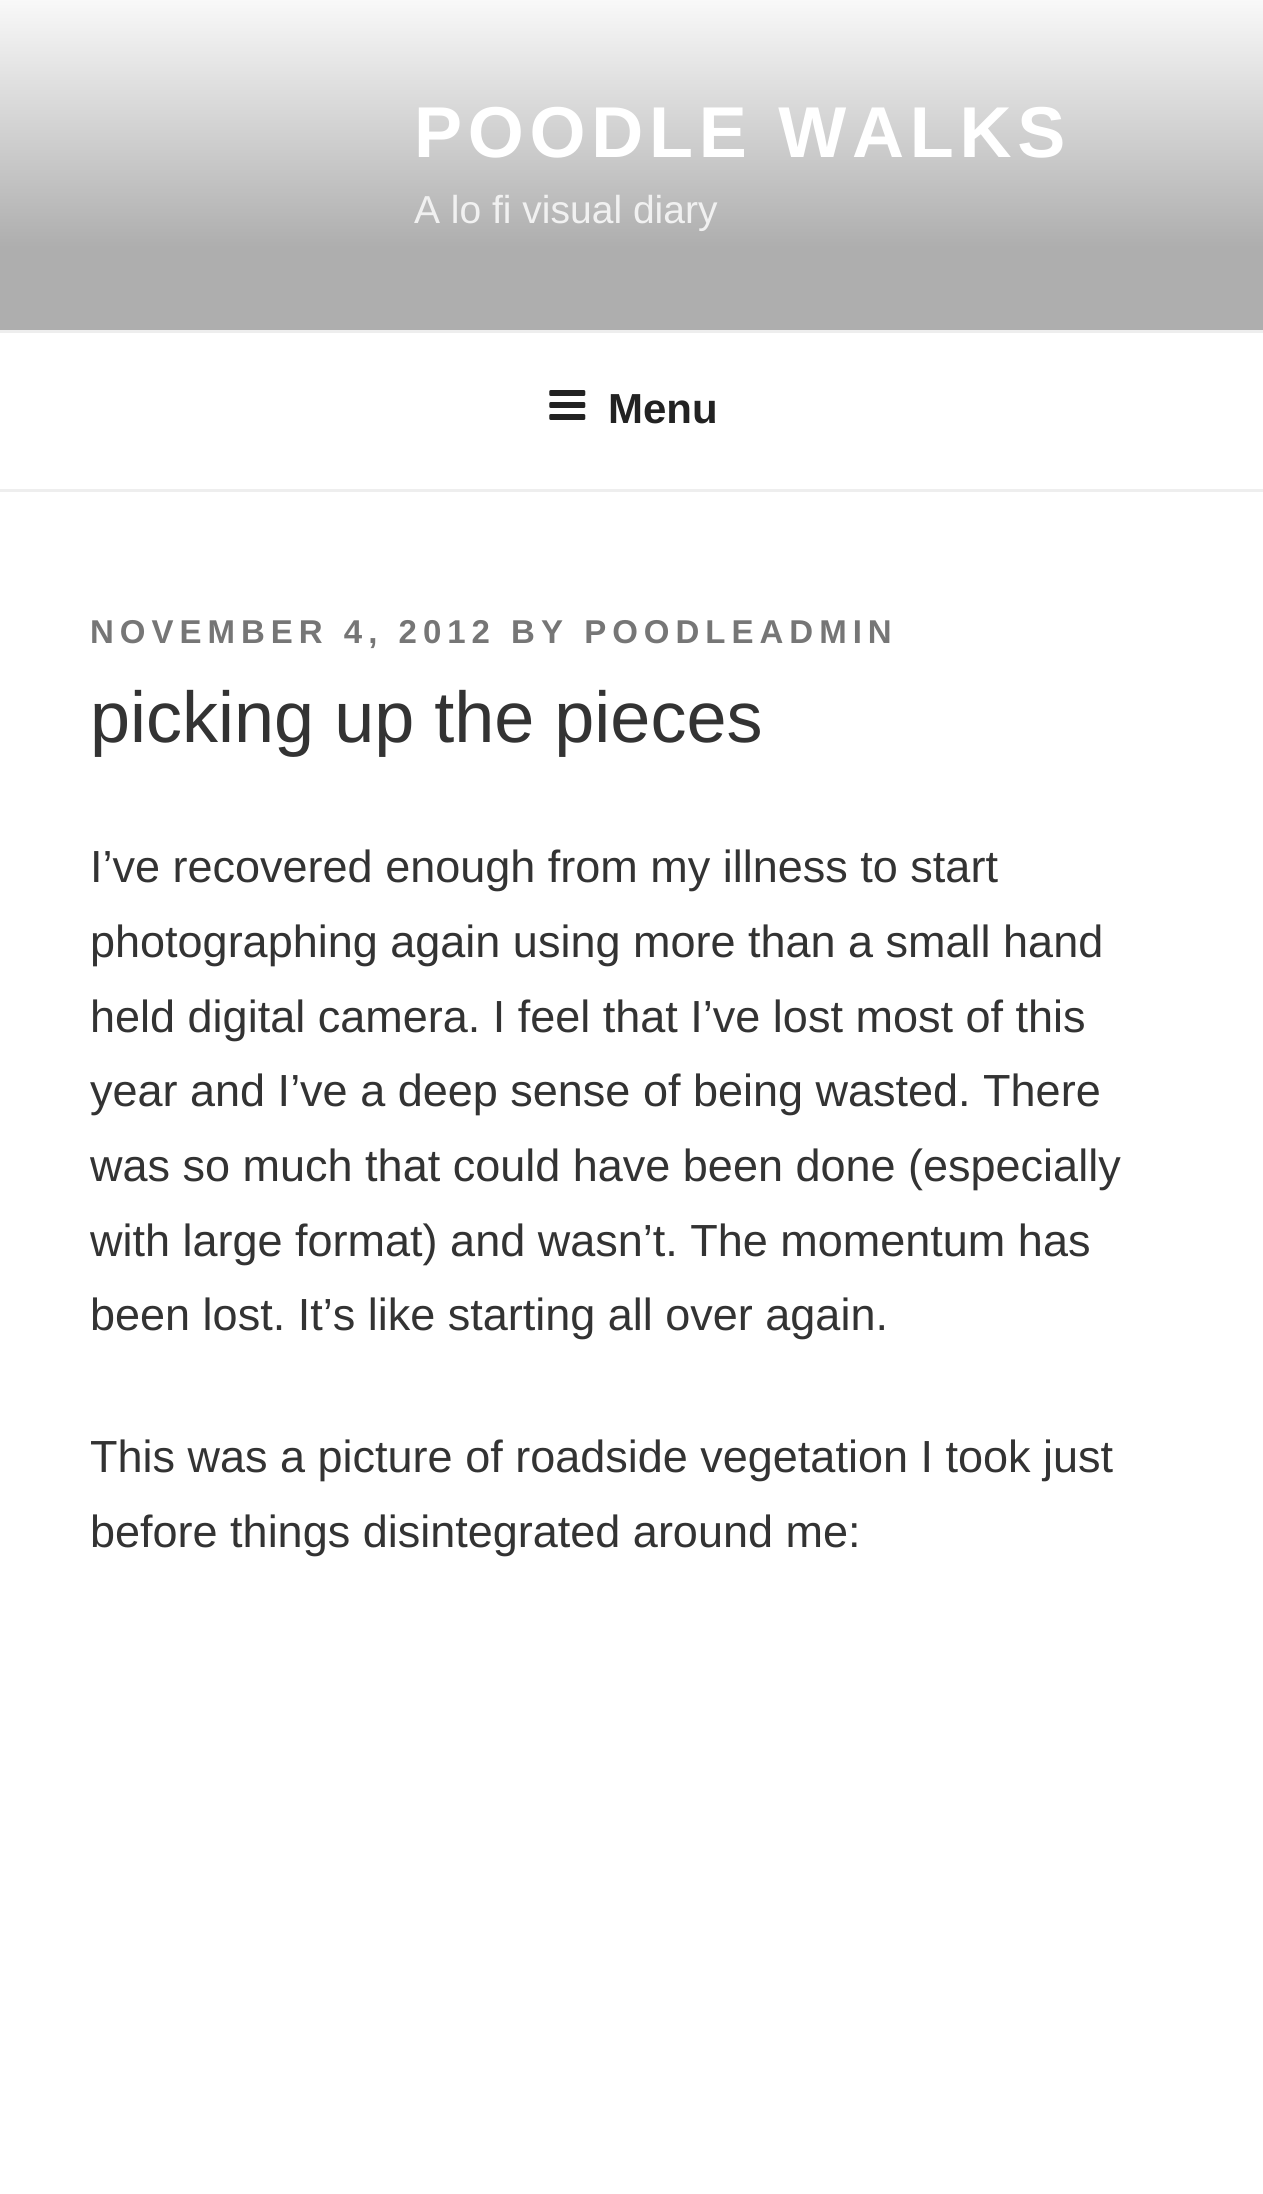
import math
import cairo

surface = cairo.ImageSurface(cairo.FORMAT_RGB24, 1263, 2194)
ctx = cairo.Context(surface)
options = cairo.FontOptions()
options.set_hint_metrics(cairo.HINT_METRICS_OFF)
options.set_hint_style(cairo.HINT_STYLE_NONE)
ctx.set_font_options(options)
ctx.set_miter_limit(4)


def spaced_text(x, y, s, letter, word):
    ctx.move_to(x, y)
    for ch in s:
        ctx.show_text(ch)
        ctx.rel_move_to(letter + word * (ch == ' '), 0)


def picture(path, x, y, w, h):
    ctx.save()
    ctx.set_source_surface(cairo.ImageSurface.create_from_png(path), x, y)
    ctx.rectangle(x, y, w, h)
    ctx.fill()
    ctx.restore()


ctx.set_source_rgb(1, 1, 1)
ctx.paint()
gradient = cairo.LinearGradient(632, 0, 632, 330)
gradient.add_color_stop_rgba(0, 0.976, 0.976, 0.976, 1)
gradient.add_color_stop_rgba(0.75, 0.682, 0.682, 0.682, 1)
gradient.add_color_stop_rgba(1, 0.682, 0.682, 0.682, 1)
ctx.set_source(gradient)
ctx.rectangle(0, 0, 1263, 330)
ctx.fill()
ctx.select_font_face("Liberation Sans", cairo.FONT_SLANT_NORMAL, cairo.FONT_WEIGHT_BOLD)
ctx.set_font_size(72)
ctx.set_source_rgb(1, 1, 1)
spaced_text(414, 157, "POODLE WALKS", 5.75, 0)
ctx.select_font_face("Liberation Sans")
ctx.set_font_size(39)
ctx.set_source_rgb(0.945, 0.945, 0.945)
ctx.move_to(414, 223)
ctx.show_text("A lo fi visual diary")
ctx.set_source_rgb(0.933, 0.933, 0.933)
ctx.rectangle(0, 330, 1263, 3)
ctx.fill()
ctx.rectangle(0, 489, 1263, 3)
ctx.fill()
picture("img1.png", 549, 390, 37, 30)
ctx.select_font_face("Liberation Sans", cairo.FONT_SLANT_NORMAL, cairo.FONT_WEIGHT_BOLD)
ctx.set_font_size(42)
ctx.set_source_rgb(0.133, 0.133, 0.133)
ctx.move_to(608, 423)
ctx.show_text("Menu")
ctx.set_font_size(33)
ctx.set_source_rgb(0.463, 0.463, 0.463)
spaced_text(90, 643, "NOVEMBER 4, 2012 BY POODLEADMIN", 6, 0)
ctx.select_font_face("Liberation Sans")
ctx.set_font_size(72)
ctx.set_source_rgb(0.2, 0.2, 0.2)
ctx.move_to(90, 742)
ctx.show_text("picking up the pieces")
ctx.set_font_size(45)
ctx.move_to(90, 882)
ctx.show_text("I’ve recovered enough from my illness to start")
ctx.move_to(90, 957)
ctx.show_text("photographing again using more than a small hand")
ctx.move_to(90, 1032)
ctx.show_text("held digital camera. I feel that I’ve lost most of this")
ctx.move_to(90, 1106)
ctx.show_text("year and I’ve a deep sense of being wasted. There")
ctx.move_to(90, 1181)
ctx.show_text("was so much that could have been done (especially")
ctx.move_to(90, 1256)
ctx.show_text("with large format) and wasn’t. The momentum has")
ctx.move_to(90, 1330)
ctx.show_text("been lost. It’s like starting all over again.")
ctx.move_to(90, 1472)
ctx.show_text("This was a picture of roadside vegetation I took just")
ctx.move_to(90, 1547)
ctx.show_text("before things disintegrated around me:")
surface.write_to_png("page.png")
